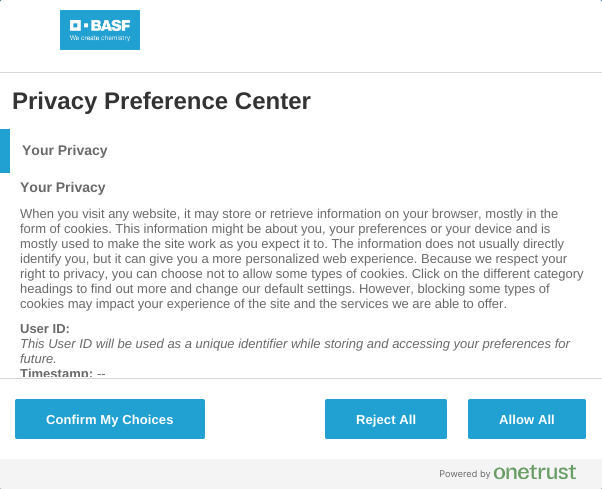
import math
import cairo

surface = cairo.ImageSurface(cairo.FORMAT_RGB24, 602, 489)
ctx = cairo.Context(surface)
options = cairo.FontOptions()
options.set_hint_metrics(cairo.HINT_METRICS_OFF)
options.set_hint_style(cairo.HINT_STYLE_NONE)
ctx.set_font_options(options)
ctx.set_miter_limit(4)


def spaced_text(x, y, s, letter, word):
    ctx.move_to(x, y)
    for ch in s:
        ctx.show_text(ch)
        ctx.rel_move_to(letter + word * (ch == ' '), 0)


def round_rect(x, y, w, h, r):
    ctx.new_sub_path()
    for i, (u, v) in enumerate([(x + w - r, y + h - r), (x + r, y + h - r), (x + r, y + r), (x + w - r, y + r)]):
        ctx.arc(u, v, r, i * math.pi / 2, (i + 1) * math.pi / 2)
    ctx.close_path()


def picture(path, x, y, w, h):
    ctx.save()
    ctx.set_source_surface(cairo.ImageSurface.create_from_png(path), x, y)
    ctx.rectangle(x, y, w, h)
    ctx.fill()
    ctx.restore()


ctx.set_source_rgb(0.502, 0.502, 0.502)
ctx.paint()
ctx.set_source_rgb(0.067, 0.314, 0.412)
ctx.rectangle(0, 0, 602, 2)
ctx.fill()
ctx.set_source_rgb(1, 1, 1)
round_rect(0, 0, 602, 489, 2)
ctx.fill()
ctx.set_source_rgb(0.847, 0.847, 0.847)
ctx.rectangle(0, 72, 602, 1)
ctx.fill()
picture("img1.png", 60, 10, 80, 40)
ctx.select_font_face("Liberation Sans", cairo.FONT_SLANT_NORMAL, cairo.FONT_WEIGHT_BOLD)
ctx.set_font_size(24)
ctx.set_source_rgb(0.2, 0.2, 0.2)
ctx.move_to(12, 109)
ctx.show_text("Privacy Preference Center")
ctx.set_source_rgb(0.129, 0.627, 0.824)
ctx.rectangle(0, 129, 10, 44)
ctx.fill()
ctx.set_font_size(14)
ctx.set_source_rgb(0.412, 0.412, 0.412)
ctx.move_to(22, 155)
ctx.show_text("Your Privacy")
ctx.move_to(20, 192)
ctx.show_text("Your Privacy")
ctx.select_font_face("Liberation Sans")
ctx.set_font_size(13)
ctx.move_to(20, 218)
ctx.show_text("When you visit any website, it may store or retrieve information on your browser, mostly in the")
ctx.move_to(20, 233)
ctx.show_text("form of cookies. This information might be about you, your preferences or your device and is")
ctx.move_to(20, 248)
ctx.show_text("mostly used to make the site work as you expect it to. The information does not usually directly")
ctx.move_to(20, 263)
ctx.show_text("identify you, but it can give you a more personalized web experience. Because we respect your")
ctx.move_to(20, 278)
ctx.show_text("right to privacy, you can choose not to allow some types of cookies. Click on the different category")
ctx.move_to(20, 293)
ctx.show_text("headings to find out more and change our default settings. However, blocking some types of")
ctx.move_to(20, 308)
ctx.show_text("cookies may impact your experience of the site and the services we are able to offer.")
ctx.select_font_face("Liberation Sans", cairo.FONT_SLANT_NORMAL, cairo.FONT_WEIGHT_BOLD)
ctx.move_to(20, 333)
ctx.show_text("User ID:")
ctx.select_font_face("Liberation Sans", cairo.FONT_SLANT_ITALIC)
ctx.move_to(20, 348)
ctx.show_text("This User ID will be used as a unique identifier while storing and accessing your preferences for")
ctx.move_to(20, 363)
ctx.show_text("future.")
ctx.save()
ctx.rectangle(0, 73, 602, 304)
ctx.clip()
ctx.select_font_face("Liberation Sans", cairo.FONT_SLANT_NORMAL, cairo.FONT_WEIGHT_BOLD)
ctx.move_to(20, 378)
ctx.show_text("Timestamp:")
ctx.restore()
ctx.select_font_face("Liberation Sans")
ctx.move_to(97, 378)
ctx.show_text("--")
ctx.set_source_rgb(0.847, 0.847, 0.847)
ctx.rectangle(0, 378, 602, 1)
ctx.fill()
ctx.set_source_rgb(0.129, 0.627, 0.824)
round_rect(15.5, 399.5, 189, 39, 1.5)
ctx.fill_preserve()
ctx.set_line_width(1)
ctx.stroke()
ctx.select_font_face("Liberation Sans", cairo.FONT_SLANT_NORMAL, cairo.FONT_WEIGHT_BOLD)
ctx.set_source_rgb(1, 1, 1)
spaced_text(46, 424, "Confirm My Choices", 0.1, 0)
ctx.set_source_rgb(0.129, 0.627, 0.824)
round_rect(325.5, 399.5, 121, 39, 1.5)
ctx.fill_preserve()
ctx.stroke()
ctx.set_source_rgb(1, 1, 1)
spaced_text(356, 424, "Reject All", 0.1, 0)
ctx.set_source_rgb(0.129, 0.627, 0.824)
round_rect(468.5, 399.5, 117, 39, 1.5)
ctx.fill_preserve()
ctx.stroke()
ctx.set_source_rgb(1, 1, 1)
spaced_text(499, 424, "Allow All", 0.1, 0)
ctx.set_source_rgb(0.957, 0.957, 0.957)
ctx.new_path()
ctx.move_to(0, 459)
ctx.line_to(602, 459)
ctx.line_to(602, 487)
ctx.curve_to(602, 488, 601, 489, 600, 489)
ctx.line_to(2, 489)
ctx.curve_to(1, 489, 0, 488, 0, 487)
ctx.close_path()
ctx.fill()
picture("img2.png", 440, 464, 136, 16)
surface.write_to_png("page.png")
